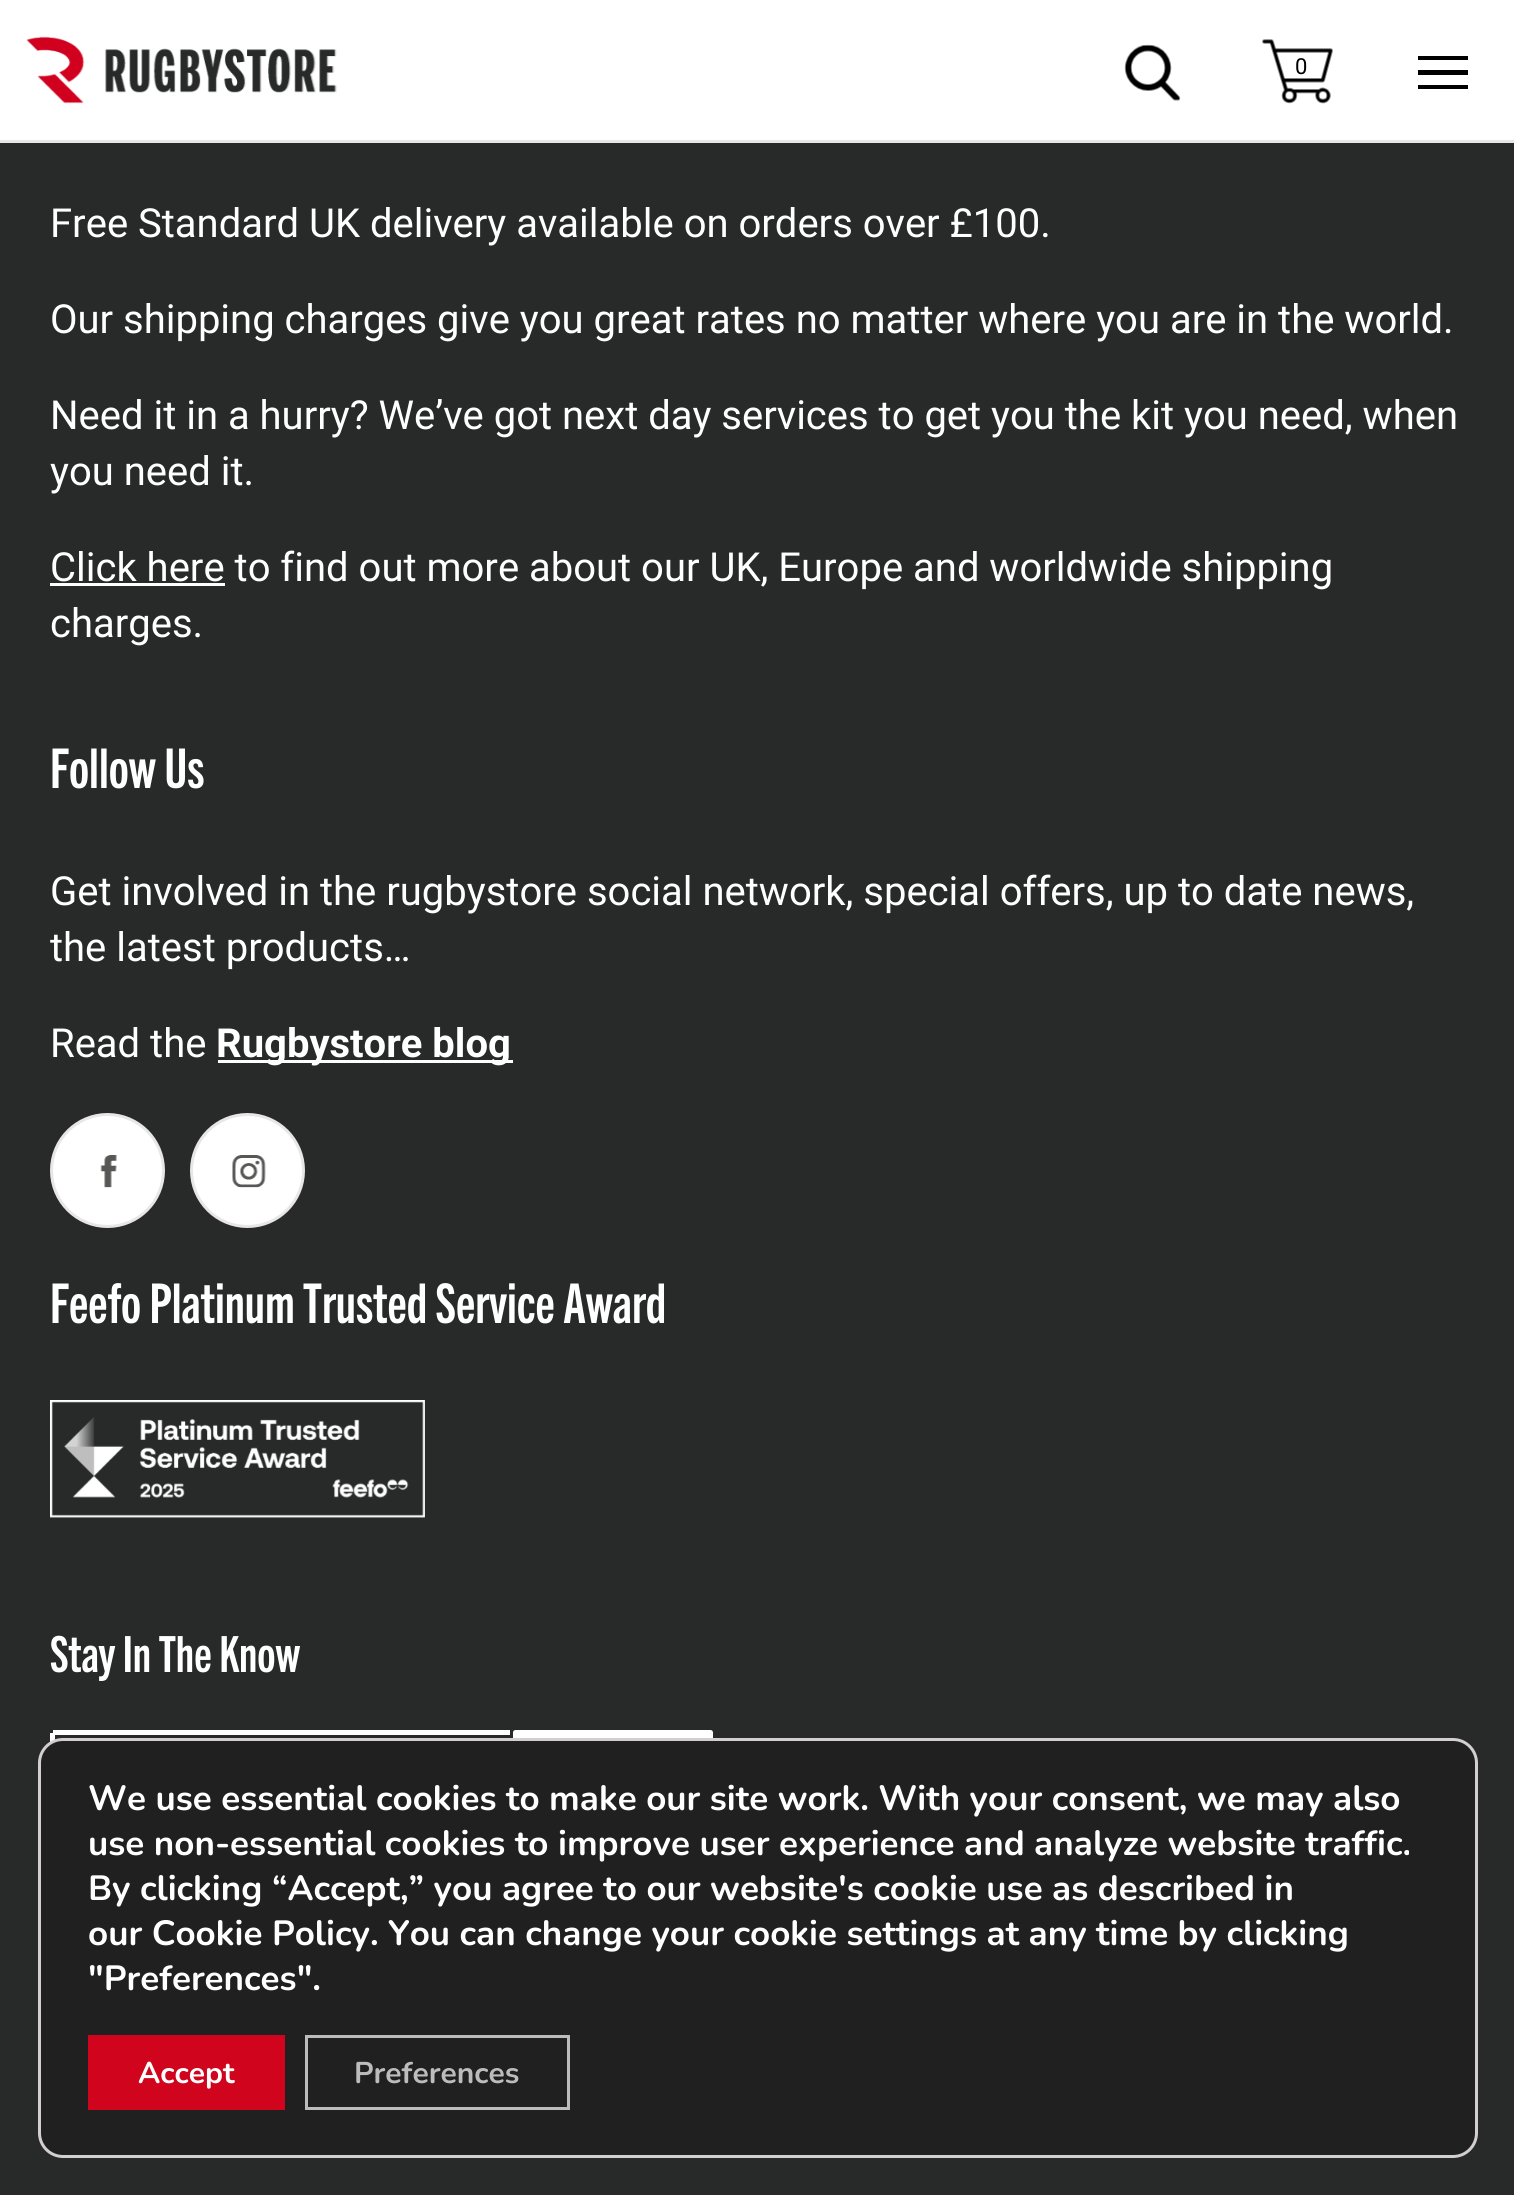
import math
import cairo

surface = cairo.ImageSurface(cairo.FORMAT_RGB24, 1514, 2195)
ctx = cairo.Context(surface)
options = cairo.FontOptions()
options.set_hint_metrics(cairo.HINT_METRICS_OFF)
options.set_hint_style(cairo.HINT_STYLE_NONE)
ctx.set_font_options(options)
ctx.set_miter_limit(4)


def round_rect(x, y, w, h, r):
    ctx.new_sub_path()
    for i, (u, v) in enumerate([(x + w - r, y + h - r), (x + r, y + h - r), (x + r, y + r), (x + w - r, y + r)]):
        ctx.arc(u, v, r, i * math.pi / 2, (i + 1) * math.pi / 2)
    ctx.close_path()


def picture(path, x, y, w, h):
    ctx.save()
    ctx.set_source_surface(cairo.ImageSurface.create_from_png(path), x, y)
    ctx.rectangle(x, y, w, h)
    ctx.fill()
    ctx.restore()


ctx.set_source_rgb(0.157, 0.161, 0.161)
ctx.paint()
ctx.set_source_rgb(1, 1, 1)
ctx.rectangle(0, 0, 1514, 140)
ctx.fill()
ctx.set_source_rgb(0.91, 0.902, 0.902)
ctx.rectangle(0, 140, 1514, 3)
ctx.fill()
picture("img1.png", 26, 36, 311, 68)
picture("img2.png", 1124, 44, 57, 57)
picture("img3.png", 1262, 39, 71, 65)
ctx.select_font_face("Roboto")
ctx.set_font_size(22)
ctx.set_source_rgb(0, 0, 0)
ctx.move_to(1295, 74)
ctx.show_text("0")
ctx.rectangle(1418, 56, 50, 4)
ctx.fill()
ctx.rectangle(1418, 70, 50, 5)
ctx.fill()
ctx.rectangle(1418, 85, 50, 4)
ctx.fill()
ctx.set_font_size(40)
ctx.set_source_rgb(1, 1, 1)
ctx.move_to(50, 237)
ctx.show_text("Free Standard UK delivery available on orders over £100.")
ctx.move_to(50, 333)
ctx.show_text("Our shipping charges give you great rates no matter where you are in the world.")
ctx.move_to(50, 429)
ctx.show_text("Need it in a hurry? We’ve got next day services to get you the kit you need, when")
ctx.move_to(50, 485)
ctx.show_text("you need it.")
ctx.rectangle(50, 583, 175, 3)
ctx.fill()
ctx.move_to(50, 581)
ctx.show_text("Click here to find out more about our UK, Europe and worldwide shipping")
ctx.move_to(50, 637)
ctx.show_text("charges.")
ctx.select_font_face("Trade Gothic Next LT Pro", cairo.FONT_SLANT_NORMAL, cairo.FONT_WEIGHT_BOLD)
ctx.set_font_size(55)
ctx.move_to(50, 788)
ctx.show_text("Follow Us")
ctx.select_font_face("Roboto")
ctx.set_font_size(40)
ctx.move_to(50, 905)
ctx.show_text("Get involved in the rugbystore social network, special offers, up to date news,")
ctx.move_to(50, 961)
ctx.show_text("the latest products…")
ctx.move_to(50, 1057)
ctx.show_text("Read the")
ctx.rectangle(218, 1060, 295, 3)
ctx.fill()
ctx.select_font_face("Roboto", cairo.FONT_SLANT_NORMAL, cairo.FONT_WEIGHT_BOLD)
ctx.move_to(216, 1057)
ctx.show_text("Rugbystore blog")
ctx.new_path()
ctx.arc(107.5, 1170.5, 56, 0, 2 * math.pi)
ctx.fill_preserve()
ctx.set_source_rgb(0.91, 0.902, 0.902)
ctx.set_line_width(3)
ctx.stroke()
picture("img4.png", 100, 1155, 17, 33)
ctx.set_source_rgb(1, 1, 1)
ctx.arc(247.5, 1170.5, 56, 0, 2 * math.pi)
ctx.fill_preserve()
ctx.set_source_rgb(0.91, 0.902, 0.902)
ctx.stroke()
picture("img5.png", 232, 1155, 34, 33)
ctx.select_font_face("Trade Gothic Next LT Pro", cairo.FONT_SLANT_NORMAL, cairo.FONT_WEIGHT_BOLD)
ctx.set_font_size(55)
ctx.set_source_rgb(1, 1, 1)
ctx.move_to(50, 1323)
ctx.show_text("Feefo Platinum Trusted Service Award")
picture("img6.png", 50, 1400, 375, 118)
ctx.set_font_size(50)
ctx.move_to(50, 1672)
ctx.show_text("Stay In The Know")
ctx.rectangle(53, 1730, 457, 5)
ctx.fill()
ctx.rectangle(50, 1733, 5, 9)
ctx.fill()
round_rect(513, 1730, 200, 120, 2.5)
ctx.fill()
ctx.set_source_rgb(0.125, 0.125, 0.125)
round_rect(39.5, 1739.5, 1437, 417, 23.5)
ctx.fill_preserve()
ctx.set_source_rgb(0.827, 0.808, 0.824)
ctx.stroke()
ctx.select_font_face("Nunito", cairo.FONT_SLANT_NORMAL, cairo.FONT_WEIGHT_BOLD)
ctx.set_font_size(35)
ctx.set_source_rgb(1, 1, 1)
ctx.move_to(88, 1810)
ctx.show_text("We use essential cookies to make our site work. With your consent, we may also")
ctx.move_to(88, 1855)
ctx.show_text("use non-essential cookies to improve user experience and analyze website traffic.")
ctx.move_to(88, 1900)
ctx.show_text("By clicking “Accept,” you agree to our website's cookie use as described in")
ctx.move_to(88, 1945)
ctx.show_text("our Cookie Policy. You can change your cookie settings at any time by clicking")
ctx.move_to(88, 1990)
ctx.show_text("\"Preferences\".")
ctx.set_source_rgb(0.816, 0.016, 0.11)
ctx.rectangle(88, 2035, 197, 75)
ctx.fill()
ctx.set_font_size(30)
ctx.set_source_rgb(1, 1, 1)
ctx.move_to(138, 2083)
ctx.show_text("Accept")
ctx.rectangle(306.5, 2036.5, 262, 72)
ctx.set_source_rgb(0.737, 0.737, 0.737)
ctx.stroke()
ctx.move_to(354, 2083)
ctx.show_text("Preferences")
surface.write_to_png("page.png")
